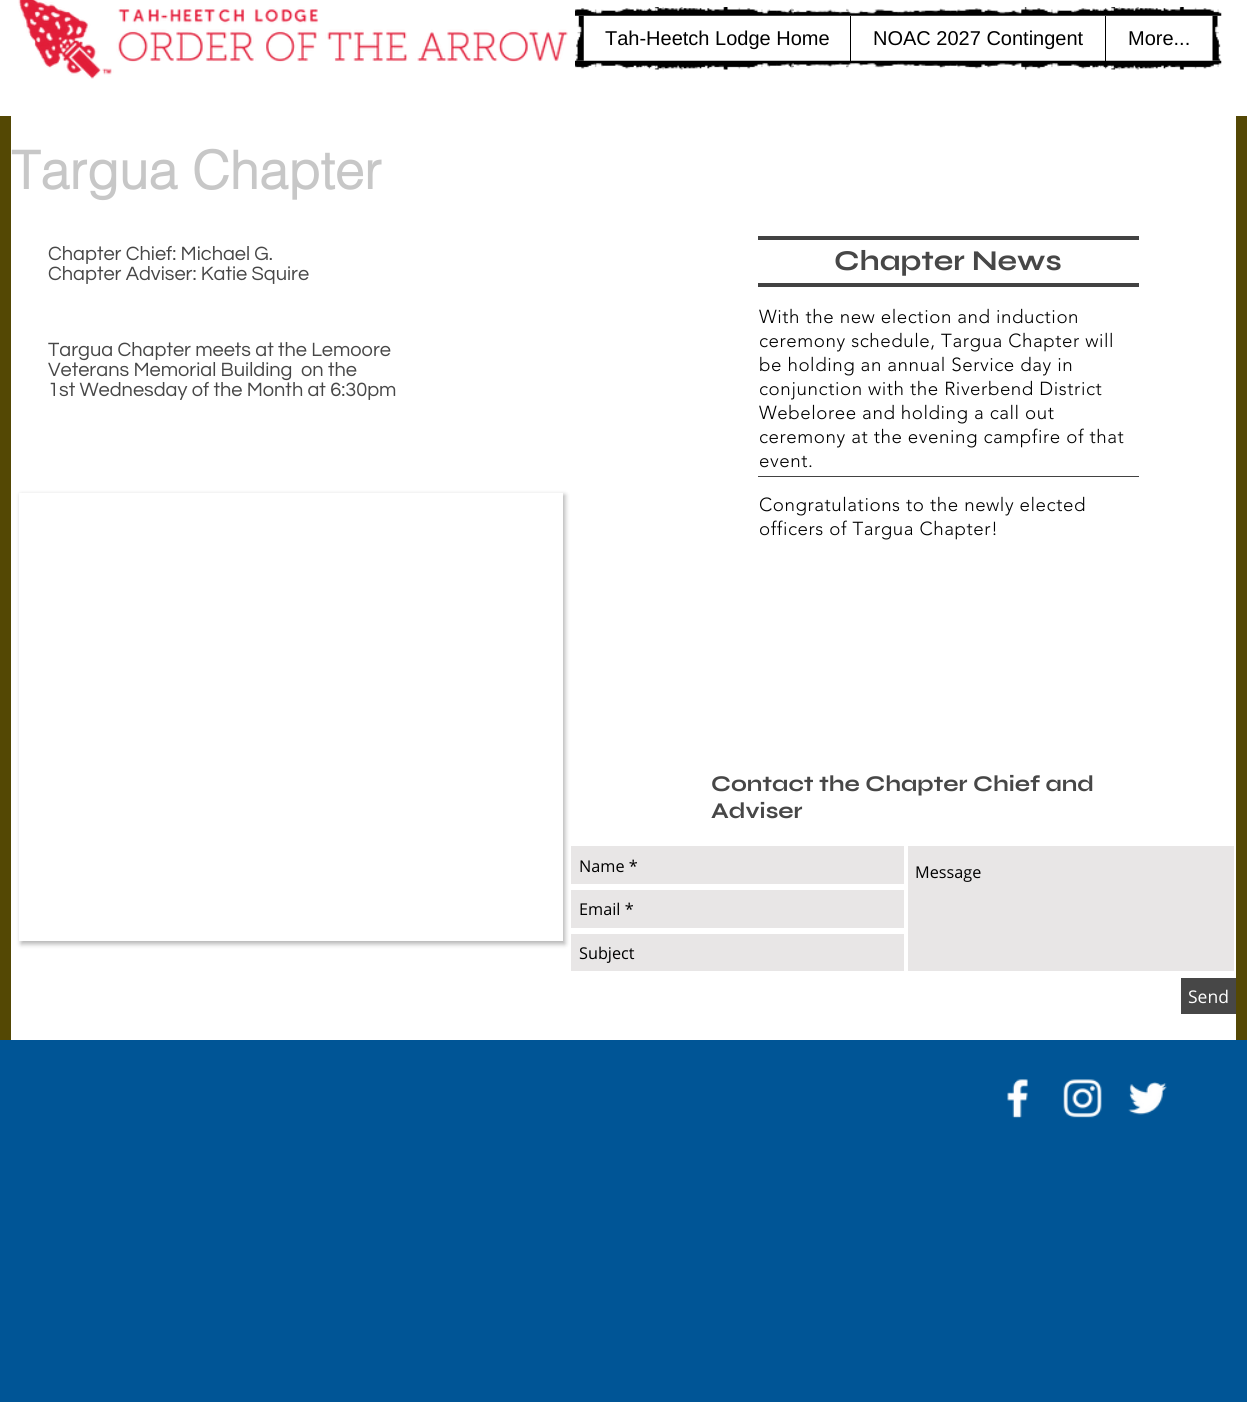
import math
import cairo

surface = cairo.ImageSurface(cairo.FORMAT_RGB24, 1247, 1402)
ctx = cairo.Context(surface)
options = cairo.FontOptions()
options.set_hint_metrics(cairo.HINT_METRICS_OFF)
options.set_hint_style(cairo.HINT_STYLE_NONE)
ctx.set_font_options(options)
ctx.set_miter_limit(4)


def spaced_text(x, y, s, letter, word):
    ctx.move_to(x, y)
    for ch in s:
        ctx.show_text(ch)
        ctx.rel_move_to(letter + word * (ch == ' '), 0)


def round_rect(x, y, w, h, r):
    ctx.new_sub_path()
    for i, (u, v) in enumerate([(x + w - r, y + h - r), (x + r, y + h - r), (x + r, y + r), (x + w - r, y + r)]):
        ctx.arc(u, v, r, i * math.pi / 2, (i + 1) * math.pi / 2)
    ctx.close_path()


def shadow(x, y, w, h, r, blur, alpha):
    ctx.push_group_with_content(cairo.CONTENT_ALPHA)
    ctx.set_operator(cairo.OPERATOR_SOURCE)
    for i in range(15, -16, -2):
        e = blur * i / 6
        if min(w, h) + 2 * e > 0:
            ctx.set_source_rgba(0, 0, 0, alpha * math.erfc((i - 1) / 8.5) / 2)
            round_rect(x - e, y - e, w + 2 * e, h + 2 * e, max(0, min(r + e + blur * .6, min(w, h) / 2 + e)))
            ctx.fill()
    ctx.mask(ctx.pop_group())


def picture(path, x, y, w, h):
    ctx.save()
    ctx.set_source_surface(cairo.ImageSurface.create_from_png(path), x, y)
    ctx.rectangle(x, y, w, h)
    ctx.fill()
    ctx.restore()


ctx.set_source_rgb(0.329, 0.282, 0.016)
ctx.paint()
ctx.set_source_rgb(1, 1, 1)
ctx.rectangle(0, 0, 1247, 116)
ctx.fill()
picture("img1.png", 18, 0, 550, 79)
picture("img2.png", 575, 7, 647, 9)
picture("img3.png", 575, 15, 9, 46)
ctx.select_font_face("Liberation Sans")
ctx.set_font_size(20)
ctx.set_source_rgb(0, 0, 0)
ctx.move_to(605, 45)
ctx.show_text("Tah-Heetch Lodge Home")
ctx.rectangle(850, 16, 1, 45)
ctx.fill()
ctx.move_to(873, 45)
ctx.show_text("NOAC 2027 Contingent")
ctx.rectangle(1105, 16, 1, 45)
ctx.fill()
ctx.move_to(1128, 45)
ctx.show_text("More...")
picture("img4.png", 1212, 15, 9, 46)
picture("img5.png", 575, 60, 647, 10)
ctx.set_source_rgb(1, 1, 1)
ctx.rectangle(11, 116, 1225, 924)
ctx.fill()
ctx.select_font_face("helvetica", cairo.FONT_SLANT_NORMAL, cairo.FONT_WEIGHT_BOLD)
ctx.set_font_size(52.5)
ctx.set_source_rgb(0.78, 0.78, 0.78)
ctx.move_to(11, 189)
ctx.show_text("Targua Chapter")
ctx.set_source_rgb(0.259, 0.259, 0.259)
ctx.rectangle(758, 236, 381, 4)
ctx.fill()
ctx.select_font_face("Questrial")
ctx.set_font_size(20)
ctx.set_source_rgb(0.278, 0.278, 0.278)
ctx.move_to(48, 260)
ctx.show_text("Chapter Chief: Michael G.")
ctx.move_to(48, 280)
ctx.show_text("Chapter Adviser: Katie Squire")
ctx.select_font_face("Syne", cairo.FONT_SLANT_NORMAL, cairo.FONT_WEIGHT_BOLD)
ctx.set_font_size(28.75)
ctx.move_to(834, 270)
ctx.show_text("Chapter News")
ctx.set_source_rgb(0.259, 0.259, 0.259)
ctx.rectangle(758, 283, 381, 4)
ctx.fill()
ctx.select_font_face("Questrial")
ctx.set_font_size(20)
ctx.set_source_rgb(0.278, 0.278, 0.278)
ctx.move_to(48, 356)
ctx.show_text("Targua Chapter meets at the Lemoore")
ctx.move_to(48, 376)
ctx.show_text("Veterans Memorial Building  on the")
ctx.move_to(48, 396)
ctx.show_text("1st Wednesday of the Month at 6:30pm")
ctx.select_font_face("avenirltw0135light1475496 Light")
ctx.set_font_size(18.75)
ctx.set_source_rgb(0, 0, 0)
spaced_text(759, 323, "With the new election and induction", 0.55, 0)
spaced_text(759, 347, "ceremony schedule, Targua Chapter will", 0.55, 0)
spaced_text(759, 371, "be holding an annual Service day in", 0.55, 0)
spaced_text(759, 395, "conjunction", 0.6, 0)
spaced_text(868, 395, "with the Riverbend District", 0.55, 0)
spaced_text(759, 419, "Webeloree and holding a call out", 0.55, 0)
spaced_text(759, 443, "ceremony at the evening campfire of that", 0.55, 0)
spaced_text(759, 467, "event.", 0.55, 0)
ctx.set_source_rgb(0.259, 0.259, 0.259)
ctx.rectangle(758, 476, 381, 1)
ctx.fill()
ctx.set_source_rgb(0, 0, 0)
shadow(21, 495, 544, 449, 0, 2.5, 0.3)
ctx.set_source_rgb(1, 1, 1)
ctx.rectangle(19, 493, 544, 448)
ctx.fill()
ctx.set_source_rgb(0, 0, 0)
spaced_text(759, 511, "Congratulations to the newly elected", 0.55, 0)
spaced_text(759, 535, "officers of Targua Chapter!", 0.55, 0)
ctx.select_font_face("Syne", cairo.FONT_SLANT_NORMAL, cairo.FONT_WEIGHT_BOLD)
ctx.set_font_size(22.5)
ctx.set_source_rgb(0.278, 0.278, 0.278)
ctx.move_to(711, 791)
ctx.show_text("Contact the Chapter Chief and")
ctx.move_to(711, 818)
ctx.show_text("Adviser")
ctx.set_source_rgb(0.91, 0.902, 0.902)
ctx.rectangle(571, 846, 333, 38)
ctx.fill()
ctx.select_font_face("Open Sans")
ctx.set_font_size(16.25)
ctx.set_source_rgb(0, 0, 0)
ctx.move_to(579, 872)
ctx.show_text("Name *")
ctx.set_source_rgb(0.91, 0.902, 0.902)
ctx.rectangle(908, 846, 326, 125)
ctx.fill()
ctx.set_source_rgb(0, 0, 0)
ctx.move_to(915, 878)
ctx.show_text("Message")
ctx.set_source_rgb(0.91, 0.902, 0.902)
ctx.rectangle(571, 890, 333, 38)
ctx.fill()
ctx.set_source_rgb(0, 0, 0)
ctx.move_to(579, 915)
ctx.show_text("Email *")
ctx.set_source_rgb(0.91, 0.902, 0.902)
ctx.rectangle(571, 934, 333, 37)
ctx.fill()
ctx.set_source_rgb(0, 0, 0)
ctx.move_to(579, 959)
ctx.show_text("Subject")
ctx.set_source_rgb(0.278, 0.278, 0.278)
ctx.rectangle(1181, 978, 55, 36)
ctx.fill()
ctx.set_font_size(17.5)
ctx.set_source_rgb(1, 1, 1)
ctx.move_to(1188, 1003)
ctx.show_text("Send")
ctx.set_source_rgb(0, 0.333, 0.588)
ctx.rectangle(0, 1040, 1247, 362)
ctx.fill()
picture("img6.png", 1007, 1079, 21, 39)
picture("img7.png", 1063, 1079, 39, 39)
picture("img8.png", 1128, 1082, 39, 33)
surface.write_to_png("page.png")
